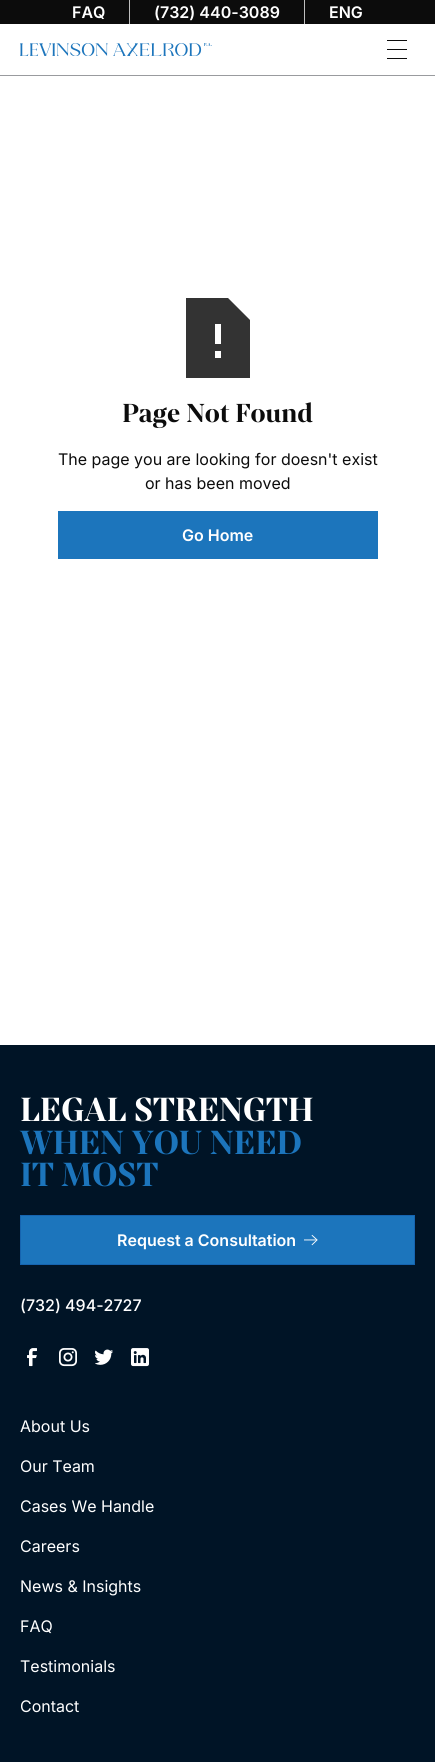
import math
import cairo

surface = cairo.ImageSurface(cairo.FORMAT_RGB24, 435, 1762)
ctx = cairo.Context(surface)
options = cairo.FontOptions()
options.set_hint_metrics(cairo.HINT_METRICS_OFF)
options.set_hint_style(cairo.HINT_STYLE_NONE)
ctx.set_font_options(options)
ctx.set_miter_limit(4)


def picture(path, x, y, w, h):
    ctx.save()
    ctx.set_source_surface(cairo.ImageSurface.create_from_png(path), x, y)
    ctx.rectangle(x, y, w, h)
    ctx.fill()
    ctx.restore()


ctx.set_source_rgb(1, 1, 1)
ctx.paint()
ctx.set_source_rgb(0.6, 0.608, 0.62)
ctx.rectangle(0, 75, 435, 1)
ctx.fill()
ctx.set_source_rgb(0.047, 0.047, 0.047)
ctx.rectangle(0, 0, 435, 24)
ctx.fill()
ctx.select_font_face("Inter SemiBold")
ctx.set_font_size(16)
ctx.set_source_rgb(1, 1, 1)
ctx.move_to(72, 18)
ctx.show_text("FAQ")
ctx.set_source_rgb(0.749, 0.749, 0.749)
ctx.rectangle(129, 0, 1, 24)
ctx.fill()
ctx.set_source_rgb(1, 1, 1)
ctx.move_to(154, 18)
ctx.show_text("(732) 440-3089")
ctx.set_source_rgb(0.749, 0.749, 0.749)
ctx.rectangle(304, 0, 1, 24)
ctx.fill()
ctx.set_source_rgb(1, 1, 1)
ctx.move_to(329, 18)
ctx.show_text("ENG")
picture("img1.png", 20, 43, 192, 13)
ctx.set_source_rgb(0.047, 0.047, 0.047)
ctx.rectangle(387, 40, 20, 1)
ctx.fill()
ctx.rectangle(387, 49, 20, 1)
ctx.fill()
ctx.rectangle(387, 58, 20, 1)
ctx.fill()
ctx.set_source_rgb(0.2, 0.2, 0.2)
ctx.set_fill_rule(cairo.FILL_RULE_EVEN_ODD)
ctx.new_path()
ctx.move_to(186, 298)
ctx.line_to(228, 298)
ctx.line_to(250, 320)
ctx.line_to(250, 378)
ctx.line_to(186, 378)
ctx.close_path()
ctx.move_to(215, 324)
ctx.line_to(221, 324)
ctx.line_to(221, 344)
ctx.line_to(215, 344)
ctx.close_path()
ctx.move_to(215, 351)
ctx.line_to(221, 351)
ctx.line_to(221, 358)
ctx.line_to(215, 358)
ctx.close_path()
ctx.fill()
ctx.select_font_face("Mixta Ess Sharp", cairo.FONT_SLANT_NORMAL, cairo.FONT_WEIGHT_BOLD)
ctx.set_font_size(28)
ctx.set_source_rgb(0.047, 0.047, 0.047)
ctx.move_to(122, 422)
ctx.show_text("Page Not Found")
ctx.select_font_face("Inter")
ctx.set_font_size(16)
ctx.move_to(58, 465)
ctx.show_text("The page you are looking for doesn't exist")
ctx.move_to(145, 489)
ctx.show_text("or has been moved")
ctx.set_source_rgb(0.11, 0.459, 0.737)
ctx.rectangle(58, 511, 320, 48)
ctx.fill()
ctx.select_font_face("Inter SemiBold")
ctx.set_source_rgb(1, 1, 1)
ctx.move_to(182, 541)
ctx.show_text("Go Home")
ctx.set_source_rgb(0, 0.082, 0.149)
ctx.rectangle(0, 1045, 435, 717)
ctx.fill()
ctx.select_font_face("Mixta Ess Sharp", cairo.FONT_SLANT_NORMAL, cairo.FONT_WEIGHT_BOLD)
ctx.set_font_size(36)
ctx.set_source_rgb(1, 1, 1)
ctx.move_to(20, 1121)
ctx.show_text("LEGAL STRENGTH")
ctx.set_source_rgb(0.11, 0.459, 0.737)
ctx.move_to(20, 1154)
ctx.show_text("WHEN YOU NEED")
ctx.move_to(20, 1186)
ctx.show_text("IT MOST")
ctx.rectangle(20.5, 1215.5, 394, 49)
ctx.fill_preserve()
ctx.set_source_rgb(0.086, 0.392, 0.686)
ctx.set_line_width(1)
ctx.stroke()
ctx.select_font_face("Inter SemiBold")
ctx.set_font_size(16)
ctx.set_source_rgb(1, 1, 1)
ctx.move_to(117, 1246)
ctx.show_text("Request a Consultation")
picture("img2.png", 304, 1234, 14, 12)
ctx.select_font_face("Inter Medium")
ctx.move_to(20, 1311)
ctx.show_text("(732) 494-2727")
picture("img3.png", 27, 1348, 10, 19)
picture("img4.png", 59, 1348, 18, 19)
picture("img5.png", 95, 1349, 18, 16)
picture("img6.png", 131, 1348, 18, 19)
ctx.select_font_face("Inter")
ctx.move_to(20, 1432)
ctx.show_text("About Us")
ctx.move_to(20, 1472)
ctx.show_text("Our Team")
ctx.move_to(20, 1512)
ctx.show_text("Cases We Handle")
ctx.move_to(20, 1552)
ctx.show_text("Careers")
ctx.move_to(20, 1592)
ctx.show_text("News & Insights")
ctx.move_to(20, 1632)
ctx.show_text("FAQ")
ctx.move_to(20, 1672)
ctx.show_text("Testimonials")
ctx.move_to(20, 1712)
ctx.show_text("Contact")
surface.write_to_png("page.png")
